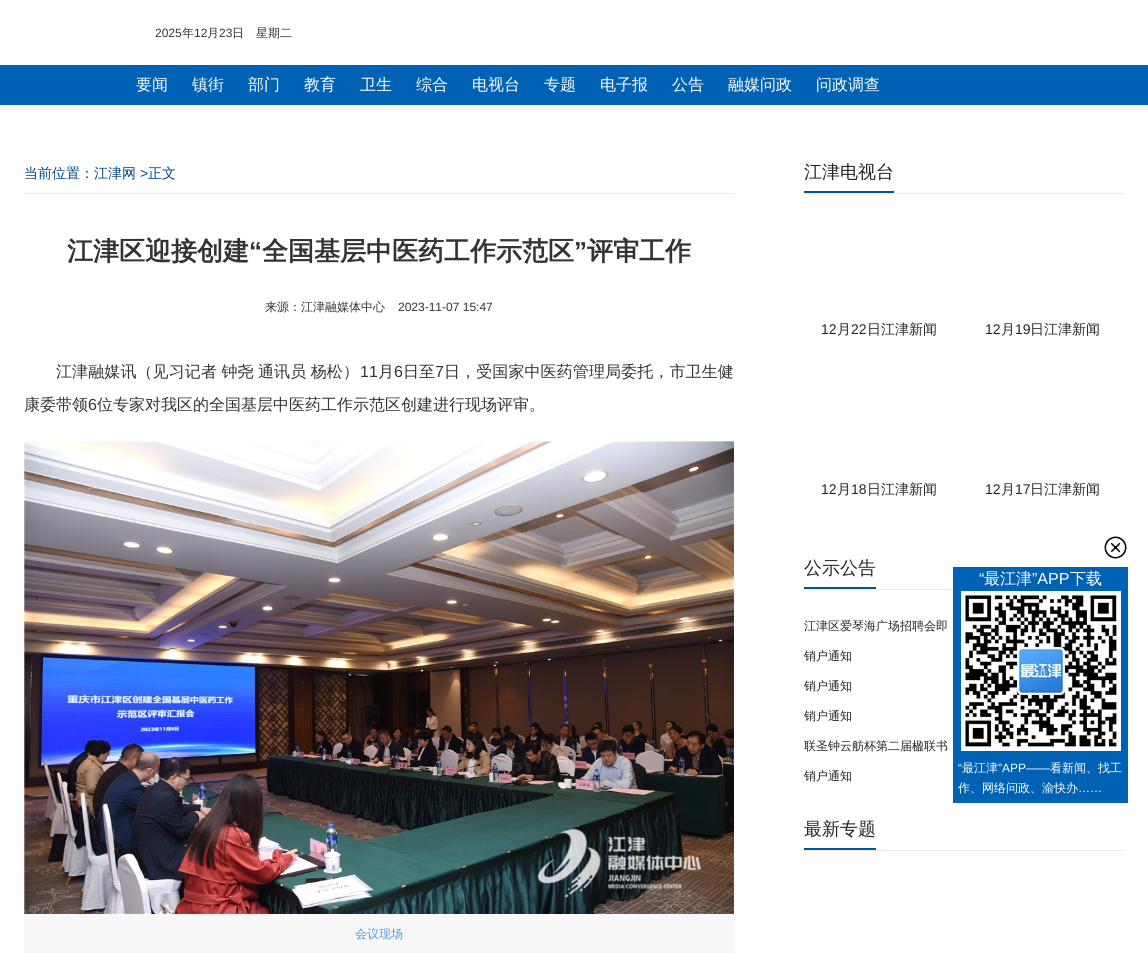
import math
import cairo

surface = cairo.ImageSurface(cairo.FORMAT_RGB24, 1148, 953)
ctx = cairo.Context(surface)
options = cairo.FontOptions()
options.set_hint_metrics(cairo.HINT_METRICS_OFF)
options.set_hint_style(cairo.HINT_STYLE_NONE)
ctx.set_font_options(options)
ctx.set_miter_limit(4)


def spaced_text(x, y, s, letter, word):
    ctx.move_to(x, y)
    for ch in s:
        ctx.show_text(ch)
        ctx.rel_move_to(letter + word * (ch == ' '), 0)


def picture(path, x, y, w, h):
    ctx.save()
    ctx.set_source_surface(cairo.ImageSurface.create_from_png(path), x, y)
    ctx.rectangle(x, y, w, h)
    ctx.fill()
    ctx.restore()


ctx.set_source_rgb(1, 1, 1)
ctx.paint()
ctx.select_font_face("Liberation Sans")
ctx.set_font_size(12)
ctx.set_source_rgb(0.2, 0.2, 0.2)
ctx.move_to(155, 37)
ctx.show_text("2025")
ctx.select_font_face("WenQuanYi Zen Hei Medium")
ctx.move_to(182, 37)
ctx.show_text("年")
ctx.select_font_face("Liberation Sans")
ctx.move_to(194, 37)
ctx.show_text("12")
ctx.select_font_face("WenQuanYi Zen Hei Medium")
ctx.move_to(207, 37)
ctx.show_text("月")
ctx.select_font_face("Liberation Sans")
ctx.move_to(219, 37)
ctx.show_text("23")
ctx.select_font_face("WenQuanYi Zen Hei Medium")
ctx.move_to(232, 37)
ctx.show_text("日　星期二")
ctx.set_source_rgb(0, 0.384, 0.71)
ctx.rectangle(0, 65, 1148, 40)
ctx.fill()
ctx.set_font_size(16)
ctx.set_source_rgb(1, 1, 1)
ctx.move_to(136, 90)
ctx.show_text("要闻")
ctx.move_to(192, 90)
ctx.show_text("镇街")
ctx.move_to(248, 90)
ctx.show_text("部门")
ctx.move_to(304, 90)
ctx.show_text("教育")
ctx.move_to(360, 90)
ctx.show_text("卫生")
ctx.move_to(416, 90)
ctx.show_text("综合")
ctx.move_to(472, 90)
ctx.show_text("电视台")
ctx.move_to(544, 90)
ctx.show_text("专题")
ctx.move_to(600, 90)
ctx.show_text("电子报")
ctx.move_to(672, 90)
ctx.show_text("公告")
ctx.move_to(728, 90)
ctx.show_text("融媒问政")
ctx.move_to(816, 90)
ctx.show_text("问政调查")
ctx.set_source_rgb(0.918, 0.918, 0.918)
ctx.rectangle(24, 193, 710, 1)
ctx.fill()
ctx.set_font_size(14)
ctx.set_source_rgb(0, 0.275, 0.51)
ctx.move_to(24, 178)
ctx.show_text("当前位置：江津网")
ctx.select_font_face("Liberation Sans")
ctx.move_to(140, 178)
ctx.show_text(">")
ctx.select_font_face("WenQuanYi Zen Hei Medium")
ctx.move_to(148, 178)
ctx.show_text("正文")
ctx.select_font_face("WenQuanYi Zen Hei", cairo.FONT_SLANT_NORMAL, cairo.FONT_WEIGHT_BOLD)
ctx.set_font_size(26)
ctx.set_source_rgb(0.2, 0.2, 0.2)
ctx.move_to(67, 260)
ctx.show_text("江津区迎接创建")
ctx.select_font_face("Liberation Sans", cairo.FONT_SLANT_NORMAL, cairo.FONT_WEIGHT_BOLD)
ctx.move_to(249, 260)
ctx.show_text("“")
ctx.select_font_face("WenQuanYi Zen Hei", cairo.FONT_SLANT_NORMAL, cairo.FONT_WEIGHT_BOLD)
ctx.move_to(262, 260)
ctx.show_text("全国基层中医药工作示范区")
ctx.select_font_face("Liberation Sans", cairo.FONT_SLANT_NORMAL, cairo.FONT_WEIGHT_BOLD)
ctx.move_to(574, 260)
ctx.show_text("”")
ctx.select_font_face("WenQuanYi Zen Hei", cairo.FONT_SLANT_NORMAL, cairo.FONT_WEIGHT_BOLD)
ctx.move_to(587, 260)
ctx.show_text("评审工作")
ctx.select_font_face("WenQuanYi Zen Hei Medium")
ctx.set_font_size(12)
ctx.move_to(265, 311)
ctx.show_text("来源：江津融媒体中心")
ctx.select_font_face("Liberation Sans")
ctx.move_to(398, 311)
ctx.show_text("2023-11-07 15:47")
ctx.select_font_face("WenQuanYi Zen Hei Medium")
ctx.set_font_size(16)
spaced_text(56, 377, "江津融媒讯（见习记者 钟尧 通讯员 杨松）", 0.1, -0.5)
ctx.select_font_face("Liberation Sans")
spaced_text(360, 377, "11", 0.1, 0)
ctx.select_font_face("WenQuanYi Zen Hei Medium")
spaced_text(378, 377, "月", 0.1, 0)
ctx.select_font_face("Liberation Sans")
spaced_text(394, 377, "6", 0.1, 0)
ctx.select_font_face("WenQuanYi Zen Hei Medium")
spaced_text(403, 377, "日至", 0.1, 0)
ctx.select_font_face("Liberation Sans")
spaced_text(435, 377, "7", 0.1, 0)
ctx.select_font_face("WenQuanYi Zen Hei Medium")
spaced_text(444, 377, "日，受国家中医药管理局委托，市卫生健", 0.1, 0)
ctx.move_to(24, 410)
ctx.show_text("康委带领")
ctx.select_font_face("Liberation Sans")
ctx.move_to(88, 410)
ctx.show_text("6")
ctx.select_font_face("WenQuanYi Zen Hei Medium")
ctx.move_to(97, 410)
ctx.show_text("位专家对我区的全国基层中医药工作示范区创建进行现场评审。")
picture("img1.png", 24, 441, 710, 473)
ctx.set_source_rgb(0.969, 0.969, 0.969)
ctx.rectangle(24, 914, 710, 39)
ctx.fill()
ctx.set_font_size(12)
ctx.set_source_rgb(0.298, 0.6, 0.902)
ctx.move_to(355, 938)
ctx.show_text("会议现场")
ctx.set_source_rgb(0.918, 0.918, 0.918)
ctx.rectangle(804, 193, 320, 1)
ctx.fill()
ctx.set_source_rgb(0, 0.333, 0.576)
ctx.rectangle(804, 191, 90, 2)
ctx.fill()
ctx.set_font_size(18)
ctx.set_source_rgb(0.141, 0.141, 0.141)
ctx.move_to(804, 178)
ctx.show_text("江津电视台")
ctx.select_font_face("Liberation Sans")
ctx.set_font_size(14)
ctx.move_to(821, 334)
ctx.show_text("12")
ctx.select_font_face("WenQuanYi Zen Hei Medium")
ctx.move_to(837, 334)
ctx.show_text("月")
ctx.select_font_face("Liberation Sans")
ctx.move_to(851, 334)
ctx.show_text("22")
ctx.select_font_face("WenQuanYi Zen Hei Medium")
ctx.move_to(867, 334)
ctx.show_text("日江津新闻")
ctx.select_font_face("Liberation Sans")
ctx.move_to(985, 334)
ctx.show_text("12")
ctx.select_font_face("WenQuanYi Zen Hei Medium")
ctx.move_to(1001, 334)
ctx.show_text("月")
ctx.select_font_face("Liberation Sans")
ctx.move_to(1015, 334)
ctx.show_text("19")
ctx.select_font_face("WenQuanYi Zen Hei Medium")
ctx.move_to(1030, 334)
ctx.show_text("日江津新闻")
ctx.select_font_face("Liberation Sans")
ctx.move_to(821, 494)
ctx.show_text("12")
ctx.select_font_face("WenQuanYi Zen Hei Medium")
ctx.move_to(837, 494)
ctx.show_text("月")
ctx.select_font_face("Liberation Sans")
ctx.move_to(851, 494)
ctx.show_text("18")
ctx.select_font_face("WenQuanYi Zen Hei Medium")
ctx.move_to(867, 494)
ctx.show_text("日江津新闻")
ctx.select_font_face("Liberation Sans")
ctx.move_to(985, 494)
ctx.show_text("12")
ctx.select_font_face("WenQuanYi Zen Hei Medium")
ctx.move_to(1001, 494)
ctx.show_text("月")
ctx.select_font_face("Liberation Sans")
ctx.move_to(1015, 494)
ctx.show_text("17")
ctx.select_font_face("WenQuanYi Zen Hei Medium")
ctx.move_to(1030, 494)
ctx.show_text("日江津新闻")
ctx.set_source_rgb(0.918, 0.918, 0.918)
ctx.rectangle(804, 589, 149, 1)
ctx.fill()
ctx.set_source_rgb(0, 0.333, 0.576)
ctx.rectangle(804, 587, 72, 2)
ctx.fill()
ctx.set_font_size(18)
ctx.set_source_rgb(0.141, 0.141, 0.141)
ctx.move_to(804, 574)
ctx.show_text("公示公告")
ctx.set_font_size(12)
ctx.move_to(804, 630)
ctx.show_text("江津区爱琴海广场招聘会即")
ctx.move_to(804, 660)
ctx.show_text("销户通知")
ctx.move_to(804, 690)
ctx.show_text("销户通知")
ctx.move_to(804, 720)
ctx.show_text("销户通知")
ctx.move_to(804, 750)
ctx.show_text("联圣钟云舫杯第二届楹联书")
ctx.move_to(804, 780)
ctx.show_text("销户通知")
ctx.set_source_rgb(0.918, 0.918, 0.918)
ctx.rectangle(804, 850, 320, 1)
ctx.fill()
ctx.set_source_rgb(0, 0.333, 0.576)
ctx.rectangle(804, 848, 72, 2)
ctx.fill()
ctx.set_font_size(18)
ctx.set_source_rgb(0.141, 0.141, 0.141)
ctx.move_to(804, 835)
ctx.show_text("最新专题")
ctx.set_source_rgb(0, 0.384, 0.71)
ctx.rectangle(953, 567, 175, 236)
ctx.fill()
picture("img2.png", 1104, 536, 23, 23)
ctx.select_font_face("Liberation Sans")
ctx.set_font_size(16)
ctx.set_source_rgb(1, 1, 1)
ctx.move_to(979, 584)
ctx.show_text("“")
ctx.select_font_face("WenQuanYi Zen Hei Medium")
ctx.move_to(984, 584)
ctx.show_text("最江津")
ctx.select_font_face("Liberation Sans")
ctx.move_to(1032, 584)
ctx.show_text("”APP")
ctx.select_font_face("WenQuanYi Zen Hei Medium")
ctx.move_to(1070, 584)
ctx.show_text("下载")
picture("img3.png", 961, 591, 160, 160)
ctx.select_font_face("Liberation Sans")
ctx.set_font_size(12)
ctx.move_to(958, 772)
ctx.show_text("“")
ctx.select_font_face("WenQuanYi Zen Hei Medium")
ctx.move_to(962, 772)
ctx.show_text("最江津")
ctx.select_font_face("Liberation Sans")
ctx.move_to(998, 772)
ctx.show_text("”APP——")
ctx.select_font_face("WenQuanYi Zen Hei Medium")
ctx.move_to(1050, 772)
ctx.show_text("看新闻、找工")
ctx.move_to(958, 792)
ctx.show_text("作、网络问政、渝快办")
ctx.select_font_face("Liberation Sans")
ctx.move_to(1078, 792)
ctx.show_text("……")
surface.write_to_png("page.png")
